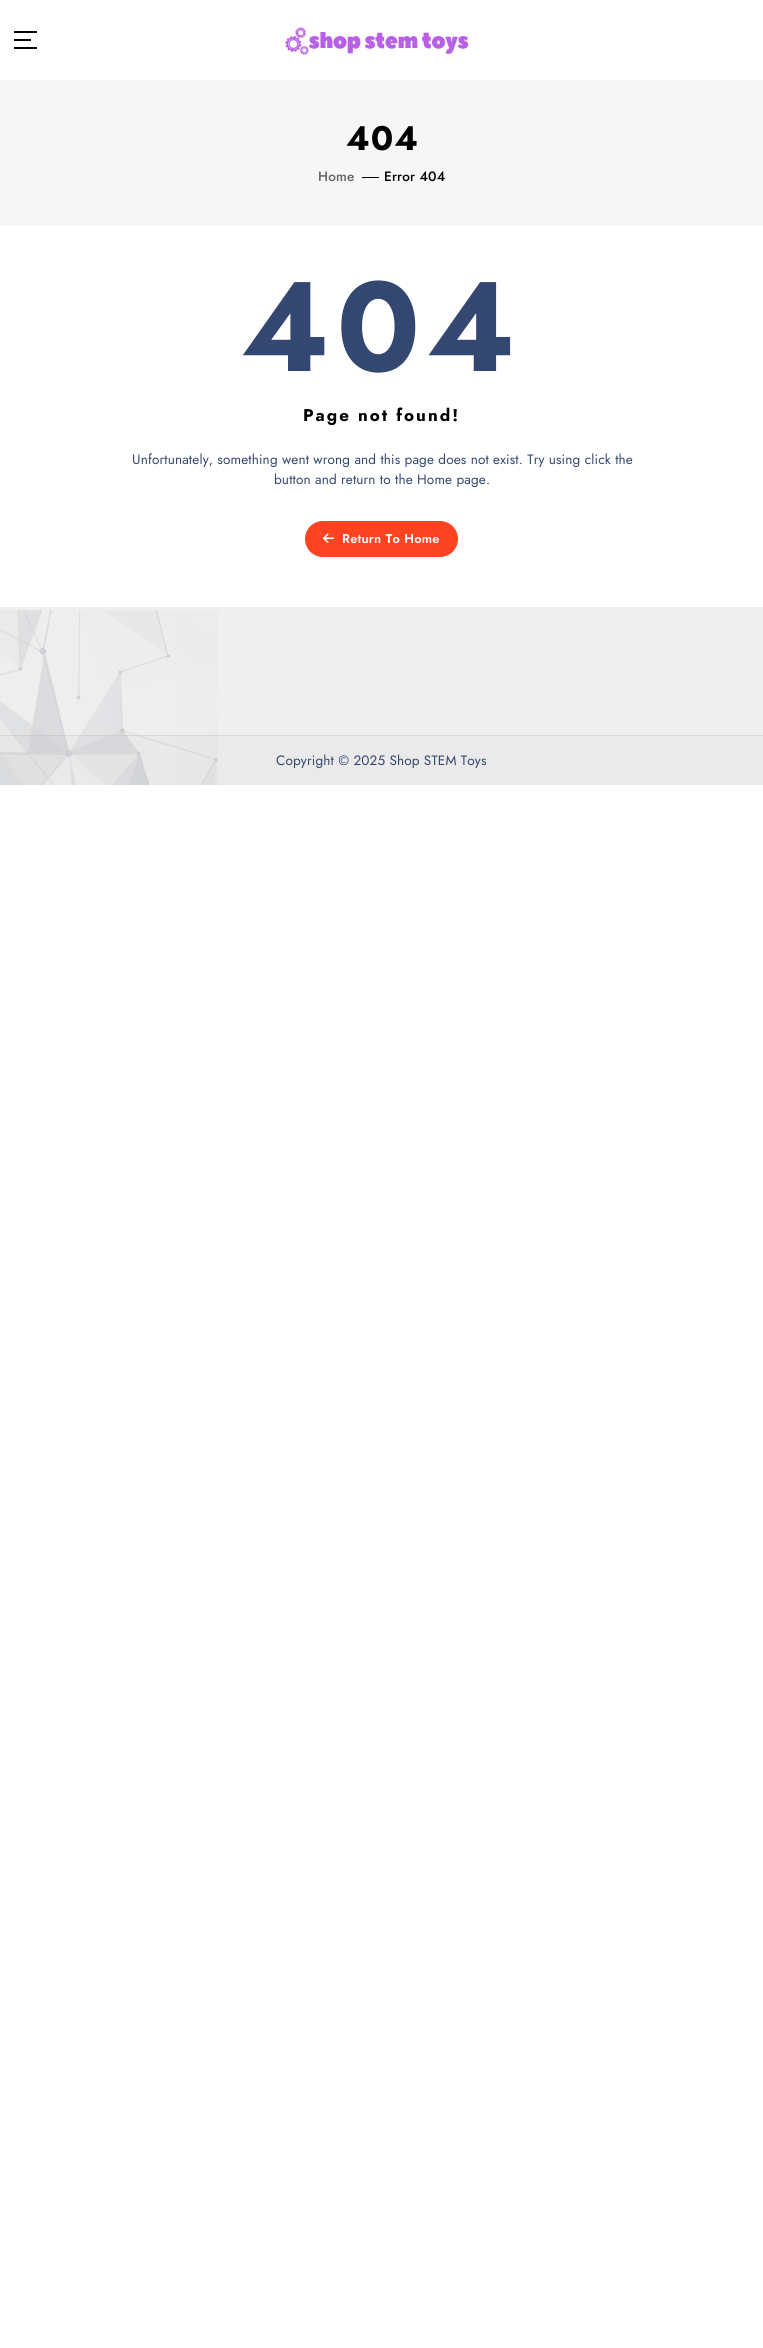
import math
import cairo

surface = cairo.ImageSurface(cairo.FORMAT_RGB24, 763, 2348)
ctx = cairo.Context(surface)
options = cairo.FontOptions()
options.set_hint_metrics(cairo.HINT_METRICS_OFF)
options.set_hint_style(cairo.HINT_STYLE_NONE)
ctx.set_font_options(options)
ctx.set_miter_limit(4)


def spaced_text(x, y, s, letter, word):
    ctx.move_to(x, y)
    for ch in s:
        ctx.show_text(ch)
        ctx.rel_move_to(letter + word * (ch == ' '), 0)


def round_rect(x, y, w, h, r):
    ctx.new_sub_path()
    for i, (u, v) in enumerate([(x + w - r, y + h - r), (x + r, y + h - r), (x + r, y + r), (x + w - r, y + r)]):
        ctx.arc(u, v, r, i * math.pi / 2, (i + 1) * math.pi / 2)
    ctx.close_path()


def picture(path, x, y, w, h):
    ctx.save()
    ctx.set_source_surface(cairo.ImageSurface.create_from_png(path), x, y)
    ctx.rectangle(x, y, w, h)
    ctx.fill()
    ctx.restore()


ctx.set_source_rgb(1, 1, 1)
ctx.paint()
ctx.set_source_rgb(0, 0, 0)
ctx.rectangle(14, 31, 23, 2)
ctx.fill()
ctx.rectangle(14, 39, 17, 2)
ctx.fill()
ctx.rectangle(14, 47, 23, 2)
ctx.fill()
picture("img1.png", 285, 27, 184, 28)
ctx.set_source_rgb(0.961, 0.961, 0.961)
ctx.rectangle(0, 80, 763, 146)
ctx.fill()
ctx.select_font_face("Jost", cairo.FONT_SLANT_NORMAL, cairo.FONT_WEIGHT_BOLD)
ctx.set_font_size(34)
ctx.set_source_rgb(0, 0, 0)
spaced_text(346, 150, "404", 1, 0)
ctx.select_font_face("Jost Medium")
ctx.set_font_size(13.55)
ctx.set_source_rgb(0.384, 0.384, 0.384)
spaced_text(318, 181, "Home", 0.15, 0)
ctx.set_source_rgb(0, 0, 0)
ctx.rectangle(362, 177, 17, 1)
ctx.fill()
spaced_text(384, 181, "Error 404", 0.15, 0)
ctx.select_font_face("Jost", cairo.FONT_SLANT_NORMAL, cairo.FONT_WEIGHT_BOLD)
ctx.set_font_size(127)
ctx.set_source_rgb(0.2, 0.278, 0.439)
spaced_text(241, 371, "404", 6.5, 0)
ctx.set_font_size(17)
ctx.set_source_rgb(0, 0, 0)
spaced_text(303, 421, "Page not found!", 2, 0)
ctx.select_font_face("Jost")
ctx.set_font_size(13.55)
ctx.set_source_rgb(0.2, 0.278, 0.439)
spaced_text(132, 464, "Unfortunately, something went wrong and this page does not exist. Try using click the", 0.15, 0)
spaced_text(274, 484, "button and return to the Home page.", 0.15, 0)
ctx.set_source_rgb(0.996, 0.263, 0.133)
round_rect(305.5, 521.5, 152, 35, 17.5)
ctx.fill_preserve()
ctx.set_line_width(1)
ctx.stroke()
picture("img2.png", 323, 533, 12, 10)
ctx.select_font_face("Jost SemiBold")
ctx.set_font_size(12.75)
ctx.set_source_rgb(1, 1, 1)
spaced_text(342, 543, "Return To Home", 0.25, 0)
ctx.set_source_rgb(0.937, 0.937, 0.937)
ctx.rectangle(0, 607, 763, 178)
ctx.fill()
picture("img3.png", 0, 610, 218, 175)
ctx.set_source_rgba(0.741, 0.741, 0.741, 0.1)
ctx.rectangle(0, 735, 763, 50)
ctx.fill()
ctx.set_source_rgba(0.741, 0.741, 0.741, 0.4)
ctx.rectangle(0, 735, 763, 1)
ctx.fill()
ctx.select_font_face("Jost")
ctx.set_font_size(13.55)
ctx.set_source_rgb(0.2, 0.278, 0.439)
spaced_text(276, 765, "Copyright © 2025 Shop STEM Toys", 0.15, 0)
surface.write_to_png("page.png")
